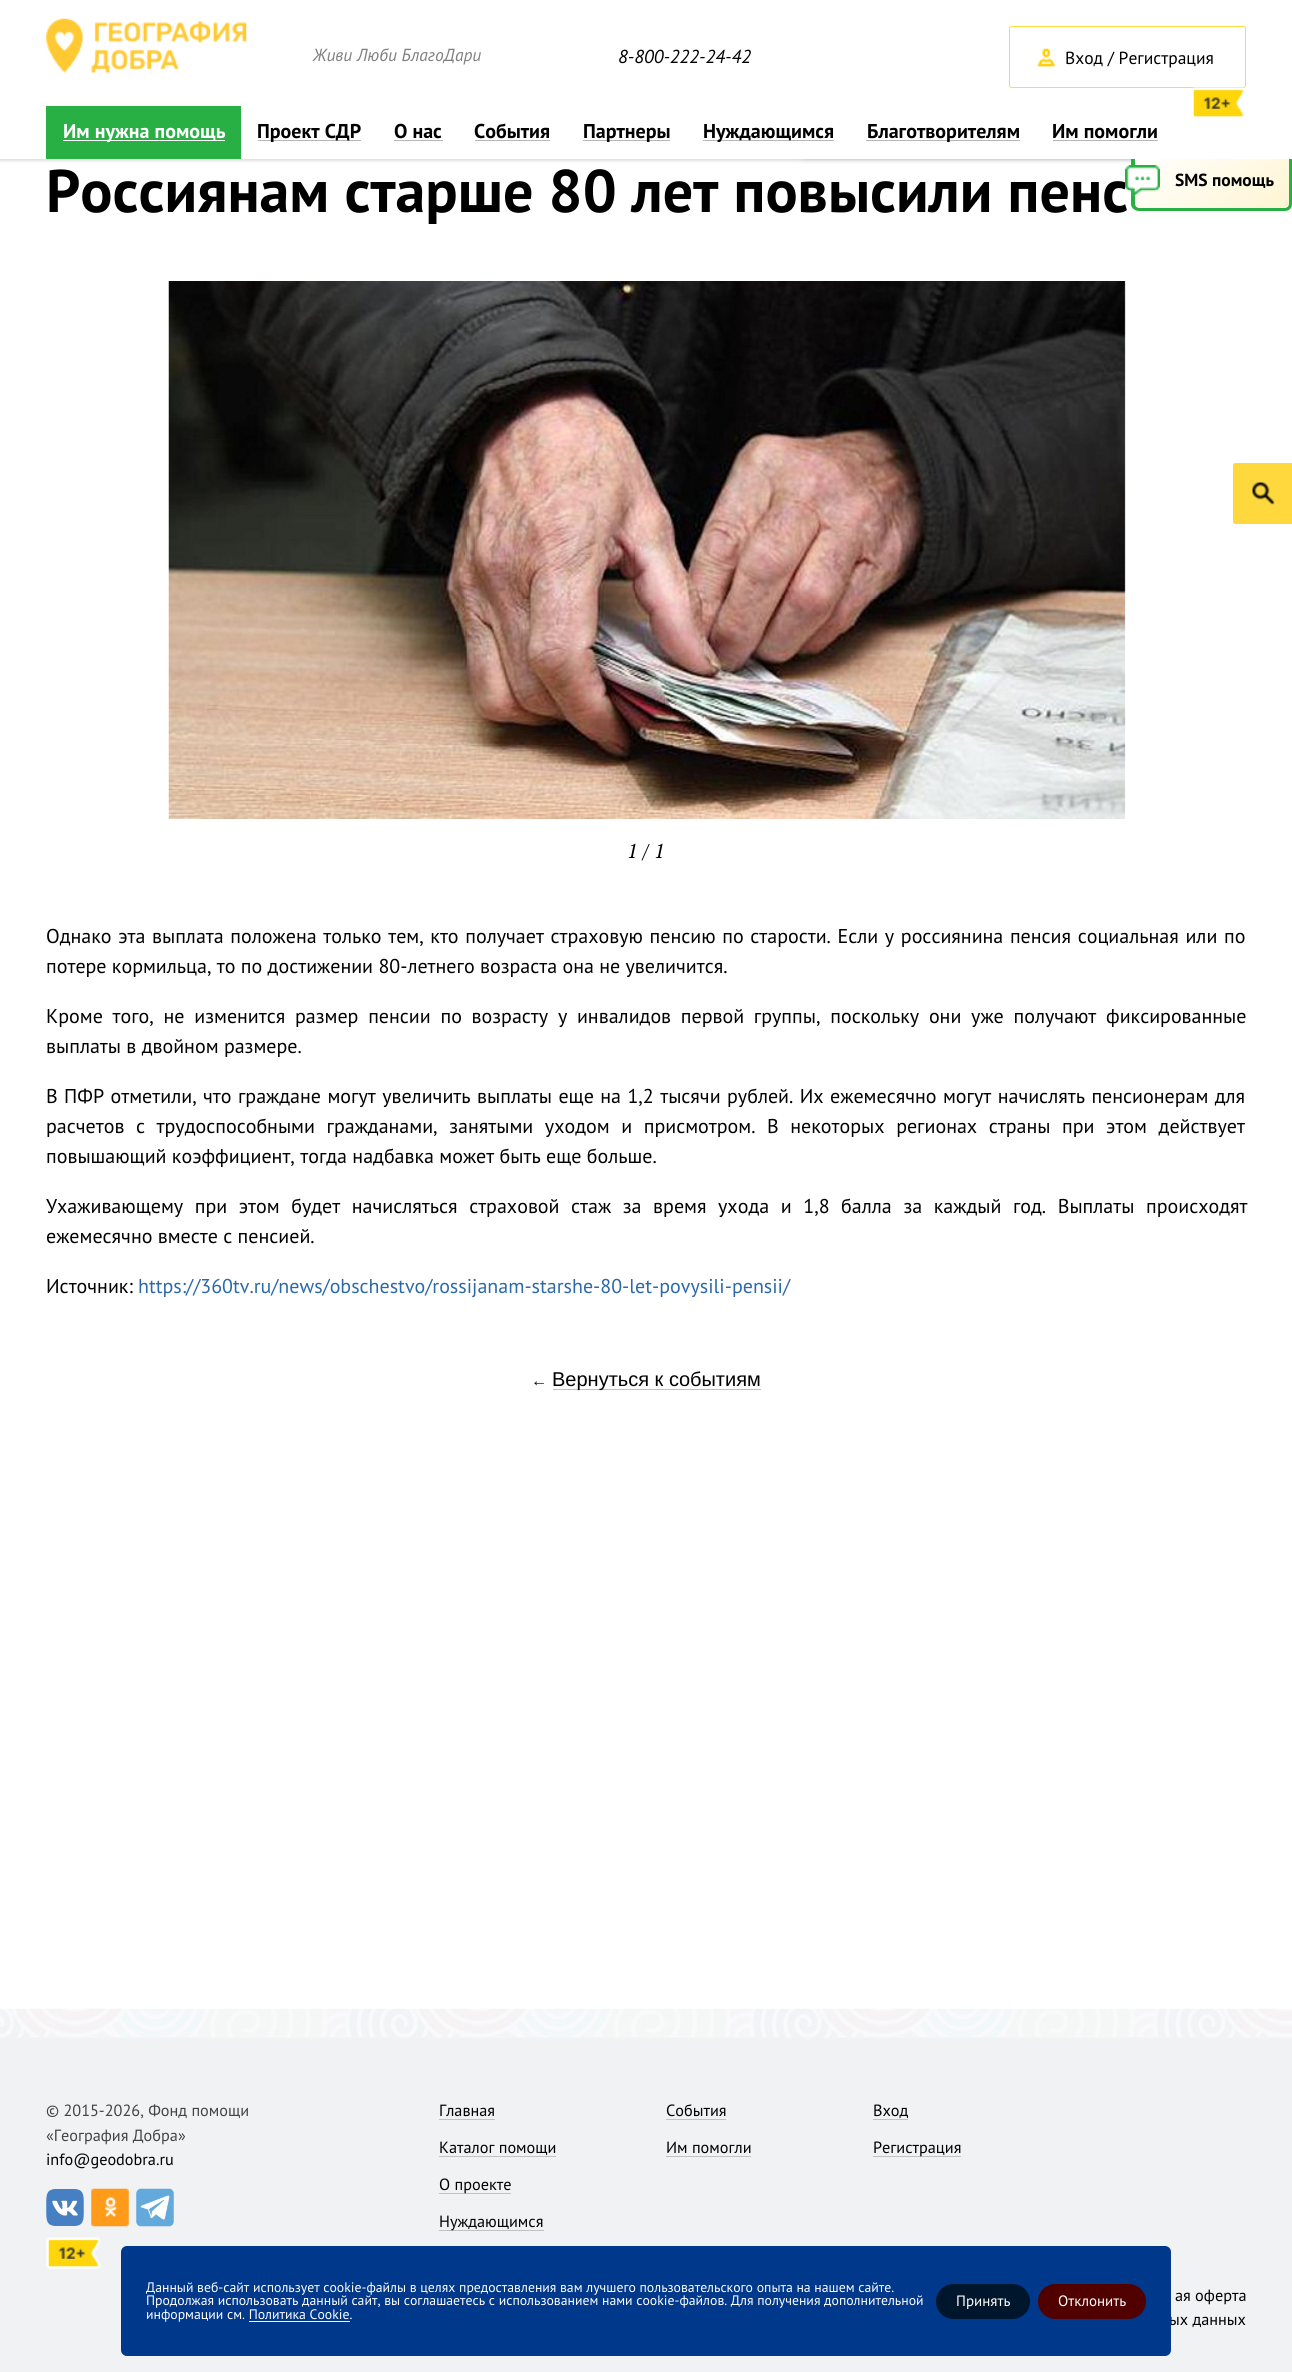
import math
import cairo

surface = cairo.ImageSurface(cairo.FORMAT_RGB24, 1292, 2372)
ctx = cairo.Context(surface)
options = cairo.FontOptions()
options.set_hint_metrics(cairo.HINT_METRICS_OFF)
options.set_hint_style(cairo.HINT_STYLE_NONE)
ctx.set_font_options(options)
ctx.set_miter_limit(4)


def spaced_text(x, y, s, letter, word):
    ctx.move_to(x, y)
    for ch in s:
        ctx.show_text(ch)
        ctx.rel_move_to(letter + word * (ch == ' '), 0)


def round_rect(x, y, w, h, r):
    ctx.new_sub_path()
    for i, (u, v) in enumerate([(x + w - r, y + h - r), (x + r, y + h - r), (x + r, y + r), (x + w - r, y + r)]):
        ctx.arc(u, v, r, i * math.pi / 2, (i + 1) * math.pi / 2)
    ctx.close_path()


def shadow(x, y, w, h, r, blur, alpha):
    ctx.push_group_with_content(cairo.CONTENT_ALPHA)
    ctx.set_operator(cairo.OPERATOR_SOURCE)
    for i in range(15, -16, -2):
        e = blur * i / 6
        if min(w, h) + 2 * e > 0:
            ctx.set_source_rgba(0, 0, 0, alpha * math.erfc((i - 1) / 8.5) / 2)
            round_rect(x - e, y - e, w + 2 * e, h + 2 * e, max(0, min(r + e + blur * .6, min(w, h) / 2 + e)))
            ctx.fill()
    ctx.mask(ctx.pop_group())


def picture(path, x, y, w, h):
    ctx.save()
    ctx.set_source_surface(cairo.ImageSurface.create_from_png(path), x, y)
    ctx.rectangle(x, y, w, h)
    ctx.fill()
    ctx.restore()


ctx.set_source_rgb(1, 1, 1)
ctx.paint()
ctx.set_source_rgb(0, 0, 0)
shadow(0, 1, 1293, 159, 0, 2, 0.2)
shadow(803, -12, 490, 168, 0, 4, 0.25)
ctx.save()
ctx.new_path()
ctx.move_to(1131, 154)
ctx.line_to(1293, 154)
ctx.line_to(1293, 203)
ctx.curve_to(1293, 207.5, 1289.5, 211, 1285, 211)
ctx.line_to(1139, 211)
ctx.curve_to(1134.5, 211, 1131, 207.5, 1131, 203)
ctx.close_path()
ctx.clip()
gradient = cairo.LinearGradient(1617, 477, 1268, 46)
gradient.add_color_stop_rgba(0, 0.996, 0.843, 0.302, 1)
gradient.add_color_stop_rgba(1, 1, 1, 1, 1)
ctx.set_source(gradient)
ctx.new_path()
ctx.move_to(1135, 154)
ctx.line_to(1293, 154)
ctx.line_to(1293, 203)
ctx.curve_to(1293, 207.5, 1289.5, 211, 1285, 211)
ctx.line_to(1135, 211)
ctx.close_path()
ctx.fill()
ctx.restore()
ctx.set_source_rgb(0.157, 0.69, 0.271)
ctx.set_fill_rule(cairo.FILL_RULE_EVEN_ODD)
ctx.new_path()
ctx.move_to(1131, 154)
ctx.line_to(1292, 154)
ctx.line_to(1292, 204)
ctx.curve_to(1292, 208, 1289, 211, 1285, 211)
ctx.line_to(1139, 211)
ctx.curve_to(1135, 211, 1131, 208, 1131, 204)
ctx.close_path()
ctx.move_to(1135, 154)
ctx.line_to(1289, 154)
ctx.line_to(1289, 204)
ctx.curve_to(1289, 206, 1287, 208, 1285, 208)
ctx.line_to(1139, 208)
ctx.curve_to(1137, 208, 1135, 206, 1135, 204)
ctx.close_path()
ctx.fill()
ctx.set_source_rgb(1, 1, 1)
ctx.rectangle(0, 0, 1292, 159)
ctx.fill()
picture("img1.png", 46, 18, 201, 55)
ctx.select_font_face("PT Sans", cairo.FONT_SLANT_ITALIC)
ctx.set_font_size(17.5)
ctx.set_source_rgb(0.502, 0.502, 0.502)
ctx.move_to(313, 61)
ctx.show_text("Живи Люби БлагоДари")
ctx.set_font_size(18.75)
ctx.set_source_rgb(0, 0, 0)
ctx.move_to(618, 63)
ctx.show_text("8-800-222-24-42")
picture("img2.png", 1037, 48, 19, 20)
round_rect(1009.5, 26.5, 236, 61, 2)
ctx.set_source_rgb(1, 0.855, 0.255)
ctx.set_line_width(1)
ctx.stroke()
ctx.select_font_face("PT Sans")
ctx.set_font_size(17.5)
ctx.set_source_rgb(0, 0, 0)
ctx.move_to(1065, 64)
ctx.show_text("Вход / Регистрация")
picture("img3.png", 1192, 87, 53, 30)
ctx.set_source_rgb(0.157, 0.69, 0.271)
ctx.rectangle(46, 106, 195, 53)
ctx.fill()
ctx.set_source_rgb(1, 1, 1)
ctx.rectangle(63, 140, 162, 1)
ctx.fill()
ctx.select_font_face("PT Sans", cairo.FONT_SLANT_NORMAL, cairo.FONT_WEIGHT_BOLD)
ctx.set_font_size(20)
ctx.move_to(63, 138)
ctx.show_text("Им нужна помощь")
ctx.set_source_rgb(0.714, 0.714, 0.714)
ctx.rectangle(258, 140, 103, 1)
ctx.fill()
ctx.set_source_rgb(0, 0, 0)
ctx.move_to(257, 138)
ctx.show_text("Проект СДР")
ctx.set_source_rgb(0.714, 0.714, 0.714)
ctx.rectangle(394, 140, 49, 1)
ctx.fill()
ctx.set_source_rgb(0, 0, 0)
ctx.move_to(394, 138)
ctx.show_text("О нас")
ctx.set_source_rgb(0.714, 0.714, 0.714)
ctx.rectangle(475, 140, 75, 1)
ctx.fill()
ctx.set_source_rgb(0, 0, 0)
ctx.move_to(474, 138)
ctx.show_text("События")
ctx.set_source_rgb(0.714, 0.714, 0.714)
ctx.rectangle(583, 140, 87, 1)
ctx.fill()
ctx.set_source_rgb(0, 0, 0)
ctx.move_to(583, 138)
ctx.show_text("Партнеры")
ctx.set_source_rgb(0.714, 0.714, 0.714)
ctx.rectangle(703, 140, 131, 1)
ctx.fill()
ctx.set_source_rgb(0, 0, 0)
ctx.move_to(703, 138)
ctx.show_text("Нуждающимся")
ctx.set_source_rgb(0.714, 0.714, 0.714)
ctx.rectangle(866, 140, 154, 1)
ctx.fill()
ctx.set_source_rgb(0, 0, 0)
ctx.move_to(867, 138)
ctx.show_text("Благотворителям")
ctx.set_source_rgb(0.714, 0.714, 0.714)
ctx.rectangle(1053, 140, 105, 1)
ctx.fill()
ctx.set_source_rgb(0, 0, 0)
ctx.move_to(1052, 138)
ctx.show_text("Им помогли")
ctx.set_font_size(60)
ctx.move_to(46, 212)
ctx.show_text("Россиянам старше 80 лет повысили пенс")
picture("img4.png", 1125, 165, 35, 32)
ctx.set_font_size(17.5)
ctx.move_to(1175, 186)
ctx.show_text("SMS помощь")
picture("img5.png", 168, 281, 958, 538)
ctx.select_font_face("PT Serif", cairo.FONT_SLANT_ITALIC)
ctx.set_font_size(20)
ctx.move_to(627, 858)
ctx.show_text("1 / 1")
ctx.select_font_face("PT Sans")
spaced_text(46, 943, "Однако эта выплата положена только тем, кто получает страховую пенсию по старости. Если у россиянина пенсия социальная или по", 0, 1.3)
ctx.move_to(46, 973)
ctx.show_text("потере кормильца, то по достижении 80-летнего возраста она не увеличится.")
spaced_text(46, 1023, "Кроме того, не изменится размер пенсии по возрасту у инвалидов первой группы, поскольку они уже получают фиксированные", 0, 4.4)
ctx.move_to(46, 1053)
ctx.show_text("выплаты в двойном размере.")
spaced_text(46, 1103, "В ПФР отметили, что граждане могут увеличить выплаты еще на 1,2 тысячи рублей. Их ежемесячно могут начислять пенсионерам для", 0, 1.1)
spaced_text(46, 1133, "расчетов с трудоспособными гражданами, занятыми уходом и присмотром. В некоторых регионах страны при этом действует", 0, 6.25)
ctx.move_to(46, 1163)
ctx.show_text("повышающий коэффициент, тогда надбавка может быть еще больше.")
spaced_text(46, 1213, "Ухаживающему при этом будет начисляться страховой стаж за время ухода и 1,8 балла за каждый год. Выплаты происходят", 0, 6.25)
ctx.move_to(46, 1243)
ctx.show_text("ежемесячно вместе с пенсией.")
ctx.move_to(46, 1293)
ctx.show_text("Источник:")
ctx.set_source_rgb(0.173, 0.412, 0.659)
ctx.move_to(138, 1293)
ctx.show_text("https://360tv.ru/news/obschestvo/rossijanam-starshe-80-let-povysili-pensii/")
ctx.select_font_face("Liberation Sans")
ctx.set_font_size(16.25)
ctx.set_source_rgb(0, 0, 0)
ctx.move_to(531, 1386)
ctx.show_text("←")
ctx.set_source_rgb(0.749, 0.757, 0.761)
ctx.rectangle(553, 1389, 208, 1)
ctx.fill()
ctx.set_font_size(20)
ctx.set_source_rgb(0, 0, 0)
ctx.move_to(552, 1386)
ctx.show_text("Вернуться к событиям")
ctx.set_source_rgb(0.941, 0.949, 0.957)
ctx.rectangle(0, 2037, 1292, 335)
ctx.fill()
picture("img6.png", 0, 2008, 1292, 30)
ctx.set_source_rgb(1, 0.847, 0.239)
ctx.new_path()
ctx.move_to(1235.5, 463)
ctx.line_to(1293, 463)
ctx.line_to(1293, 524)
ctx.line_to(1235.5, 524)
ctx.curve_to(1234, 524, 1233, 523, 1233, 521.5)
ctx.line_to(1233, 465.5)
ctx.curve_to(1233, 464, 1234, 463, 1235.5, 463)
ctx.close_path()
ctx.fill()
picture("img7.png", 1252, 482, 23, 23)
ctx.select_font_face("PT Sans")
ctx.set_font_size(16.25)
ctx.set_source_rgb(0.267, 0.267, 0.267)
ctx.move_to(46, 2116)
ctx.show_text("© 2015-2026, Фонд помощи")
ctx.move_to(46, 2141)
ctx.show_text("«География Добра»")
ctx.set_source_rgb(0, 0, 0)
ctx.move_to(46, 2165)
ctx.show_text("info@geodobra.ru")
picture("img8.png", 46, 2189, 38, 37)
picture("img9.png", 91, 2188, 38, 39)
picture("img10.png", 136, 2188, 38, 39)
picture("img11.png", 46, 2237, 55, 32)
ctx.move_to(439, 2116)
ctx.show_text("Главная")
ctx.set_source_rgb(0.749, 0.757, 0.761)
ctx.rectangle(439, 2119, 56, 1)
ctx.fill()
ctx.set_source_rgb(0, 0, 0)
ctx.move_to(439, 2153)
ctx.show_text("Каталог помощи")
ctx.set_source_rgb(0.749, 0.757, 0.761)
ctx.rectangle(439, 2156, 117, 1)
ctx.fill()
ctx.rectangle(439, 2193, 72, 1)
ctx.fill()
ctx.set_source_rgb(0, 0, 0)
ctx.move_to(439, 2190)
ctx.show_text("О проекте")
ctx.set_source_rgb(0.749, 0.757, 0.761)
ctx.rectangle(439, 2230, 105, 1)
ctx.fill()
ctx.set_source_rgb(0, 0, 0)
ctx.move_to(439, 2227)
ctx.show_text("Нуждающимся")
ctx.move_to(666, 2116)
ctx.show_text("События")
ctx.set_source_rgb(0.749, 0.757, 0.761)
ctx.rectangle(666, 2119, 60, 1)
ctx.fill()
ctx.set_source_rgb(0, 0, 0)
ctx.move_to(666, 2153)
ctx.show_text("Им помогли")
ctx.set_source_rgb(0.749, 0.757, 0.761)
ctx.rectangle(666, 2156, 85, 1)
ctx.fill()
ctx.set_source_rgb(0, 0, 0)
ctx.move_to(873, 2116)
ctx.show_text("Вход")
ctx.set_source_rgb(0.749, 0.757, 0.761)
ctx.rectangle(873, 2119, 35, 1)
ctx.fill()
ctx.rectangle(873, 2156, 88, 1)
ctx.fill()
ctx.set_source_rgb(0, 0, 0)
ctx.move_to(873, 2153)
ctx.show_text("Регистрация")
ctx.move_to(1175, 2301)
ctx.show_text("ая оферта")
ctx.move_to(1169, 2325)
ctx.show_text("ых данных")
ctx.set_source_rgb(0, 0.22, 0.545)
round_rect(121, 2246, 1050, 110, 6)
ctx.fill()
ctx.set_font_size(13.75)
ctx.set_source_rgb(1, 1, 1)
ctx.move_to(146, 2292)
ctx.show_text("Данный веб-сайт использует cookie-файлы в целях предоставления вам лучшего пользовательского опыта на нашем сайте.")
ctx.move_to(146, 2305)
ctx.show_text("Продолжая использовать данный сайт, вы соглашаетесь с использованием нами cookie-файлов. Для получения дополнительной")
ctx.move_to(146, 2319)
ctx.show_text("информации см. Политика Cookie.")
ctx.rectangle(249, 2321, 101, 1)
ctx.fill()
ctx.set_source_rgb(0, 0.086, 0.176)
round_rect(936, 2284, 94, 35, 17.5)
ctx.fill()
ctx.set_font_size(15)
ctx.set_source_rgb(1, 1, 1)
ctx.move_to(956, 2306)
ctx.show_text("Принять")
ctx.set_source_rgb(0.318, 0, 0)
round_rect(1038, 2284, 108, 35, 17.5)
ctx.fill()
ctx.set_source_rgb(1, 1, 1)
ctx.move_to(1058, 2306)
ctx.show_text("Отклонить")
surface.write_to_png("page.png")
